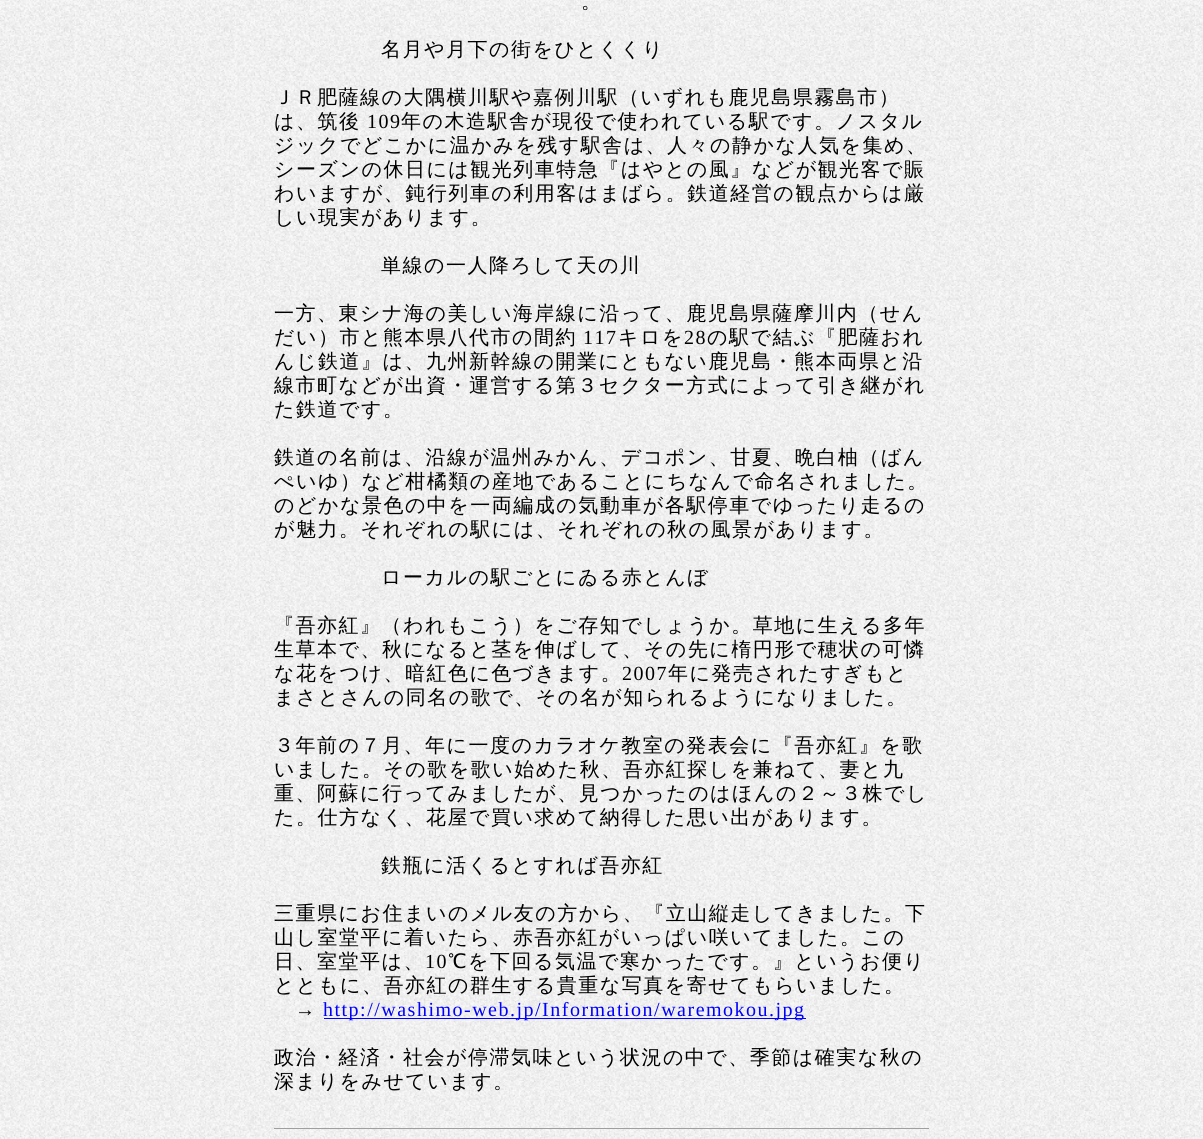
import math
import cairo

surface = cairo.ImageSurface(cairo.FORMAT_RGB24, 1203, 1139)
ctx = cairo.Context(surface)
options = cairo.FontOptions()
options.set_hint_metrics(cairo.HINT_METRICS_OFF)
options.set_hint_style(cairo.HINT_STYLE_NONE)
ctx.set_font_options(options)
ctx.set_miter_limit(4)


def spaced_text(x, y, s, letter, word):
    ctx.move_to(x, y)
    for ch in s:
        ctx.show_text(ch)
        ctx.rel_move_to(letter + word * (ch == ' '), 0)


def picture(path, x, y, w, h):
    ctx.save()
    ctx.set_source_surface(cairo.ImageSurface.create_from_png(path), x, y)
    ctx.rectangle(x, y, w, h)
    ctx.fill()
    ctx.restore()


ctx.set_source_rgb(1, 1, 1)
ctx.paint()
picture("img1.png", 0, 0, 1203, 1139)
ctx.select_font_face("WenQuanYi Zen Hei Medium")
ctx.set_font_size(20)
ctx.set_source_rgb(0, 0, 0)
spaced_text(581, 8, "。", 1.5, 0)
spaced_text(381, 56, "名月や月下の街をひとくくり", 1.5, 0)
spaced_text(274, 104, "ＪＲ肥薩線の大隅横川駅や嘉例川駅（いずれも鹿児島県霧島市）", 1.5, 0)
spaced_text(274, 128, "は、筑後", 1.5, 0)
ctx.select_font_face("Liberation Serif")
spaced_text(367, 128, "109", 1.5, 0)
ctx.select_font_face("WenQuanYi Zen Hei Medium")
spaced_text(401, 128, "年の木造駅舎が現役で使われている駅です。ノスタル", 1.5, 0)
spaced_text(274, 152, "ジックでどこかに温かみを残す駅舎は、人々の静かな人気を集め、", 1.5, 0)
spaced_text(274, 176, "シーズンの休日には観光列車特急『はやとの風』などが観光客で賑", 1.5, 0)
spaced_text(274, 200, "わいますが、鈍行列車の利用客はまばら。鉄道経営の観点からは厳", 1.5, 0)
spaced_text(274, 224, "しい現実があります。", 1.5, 0)
spaced_text(381, 272, "単線の一人降ろして天の川", 1.5, 0)
spaced_text(274, 320, "一方、東シナ海の美しい海岸線に沿って、鹿児島県薩摩川内（せん", 1.5, 0)
spaced_text(274, 344, "だい）市と熊本県八代市の間約", 1.5, 0)
ctx.select_font_face("Liberation Serif")
spaced_text(583, 344, "117", 1.5, 0)
ctx.select_font_face("WenQuanYi Zen Hei Medium")
spaced_text(618, 344, "キロを", 1.5, 0)
ctx.select_font_face("Liberation Serif")
spaced_text(684, 344, "28", 1.5, 0)
ctx.select_font_face("WenQuanYi Zen Hei Medium")
spaced_text(707, 344, "の駅で結ぶ『肥薩おれ", 1.5, 0)
spaced_text(274, 368, "んじ鉄道』は、九州新幹線の開業にともない鹿児島・熊本両県と沿", 1.5, 0)
spaced_text(274, 392, "線市町などが出資・運営する第３セクター方式によって引き継がれ", 1.5, 0)
spaced_text(274, 416, "た鉄道です。", 1.5, 0)
spaced_text(274, 464, "鉄道の名前は、沿線が温州みかん、デコポン、甘夏、晩白柚（ばん", 1.5, 0)
spaced_text(274, 488, "ぺいゆ）など柑橘類の産地であることにちなんで命名されました。", 1.5, 0)
spaced_text(274, 512, "のどかな景色の中を一両編成の気動車が各駅停車でゆったり走るの", 1.5, 0)
spaced_text(274, 536, "が魅力。それぞれの駅には、それぞれの秋の風景があります。", 1.5, 0)
spaced_text(381, 584, "ローカルの駅ごとにゐる赤とんぼ", 1.5, 0)
spaced_text(274, 632, "『吾亦紅』（われもこう）をご存知でしょうか。草地に生える多年", 1.5, 0)
spaced_text(274, 656, "生草本で、秋になると茎を伸ばして、その先に楕円形で穂状の可憐", 1.5, 0)
spaced_text(274, 680, "な花をつけ、暗紅色に色づきます。", 1.5, 0)
ctx.select_font_face("Liberation Serif")
spaced_text(622, 680, "2007", 1.5, 0)
ctx.select_font_face("WenQuanYi Zen Hei Medium")
spaced_text(668, 680, "年に発売されたすぎもと", 1.5, 0)
spaced_text(274, 704, "まさとさんの同名の歌で、その名が知られるようになりました。", 1.5, 0)
spaced_text(274, 752, "３年前の７月、年に一度のカラオケ教室の発表会に『吾亦紅』を歌", 1.5, 0)
spaced_text(274, 776, "いました。その歌を歌い始めた秋、吾亦紅探しを兼ねて、妻と九", 1.5, 0)
spaced_text(274, 800, "重、阿蘇に行ってみましたが、見つかったのはほんの２～３株でし", 1.5, 0)
spaced_text(274, 824, "た。仕方なく、花屋で買い求めて納得した思い出があります。", 1.5, 0)
spaced_text(381, 872, "鉄瓶に活くるとすれば吾亦紅", 1.5, 0)
spaced_text(274, 920, "三重県にお住まいのメル友の方から、『立山縦走してきました。下", 1.5, 0)
spaced_text(274, 944, "山し室堂平に着いたら、赤吾亦紅がいっぱい咲いてました。この", 1.5, 0)
spaced_text(274, 968, "日、室堂平は、", 1.5, 0)
ctx.select_font_face("Liberation Serif")
spaced_text(425, 968, "10", 1.5, 0)
ctx.select_font_face("WenQuanYi Zen Hei Medium")
spaced_text(448, 968, "℃を下回る気温で寒かったです。』というお便り", 1.5, 0)
spaced_text(274, 992, "とともに、吾亦紅の群生する貴重な写真を寄せてもらいました。", 1.5, 0)
ctx.select_font_face("Liberation Serif")
spaced_text(295, 1016, "→", 1.5, 0)
ctx.set_source_rgb(0, 0, 1)
ctx.rectangle(324, 1018, 482, 1)
ctx.fill()
spaced_text(323, 1016, "http://washimo-web.jp/Information/waremokou.jpg", 1.5, 0)
ctx.select_font_face("WenQuanYi Zen Hei Medium")
ctx.set_source_rgb(0, 0, 0)
spaced_text(274, 1064, "政治・経済・社会が停滞気味という状況の中で、季節は確実な秋の", 1.5, 0)
spaced_text(274, 1088, "深まりをみせています。", 1.5, 0)
ctx.set_source_rgb(0.624, 0.624, 0.624)
ctx.rectangle(274, 1128, 656, 1)
ctx.fill()
ctx.set_source_rgb(0.933, 0.933, 0.933)
ctx.rectangle(929, 1128, 1, 1)
ctx.fill()
surface.write_to_png("page.png")
